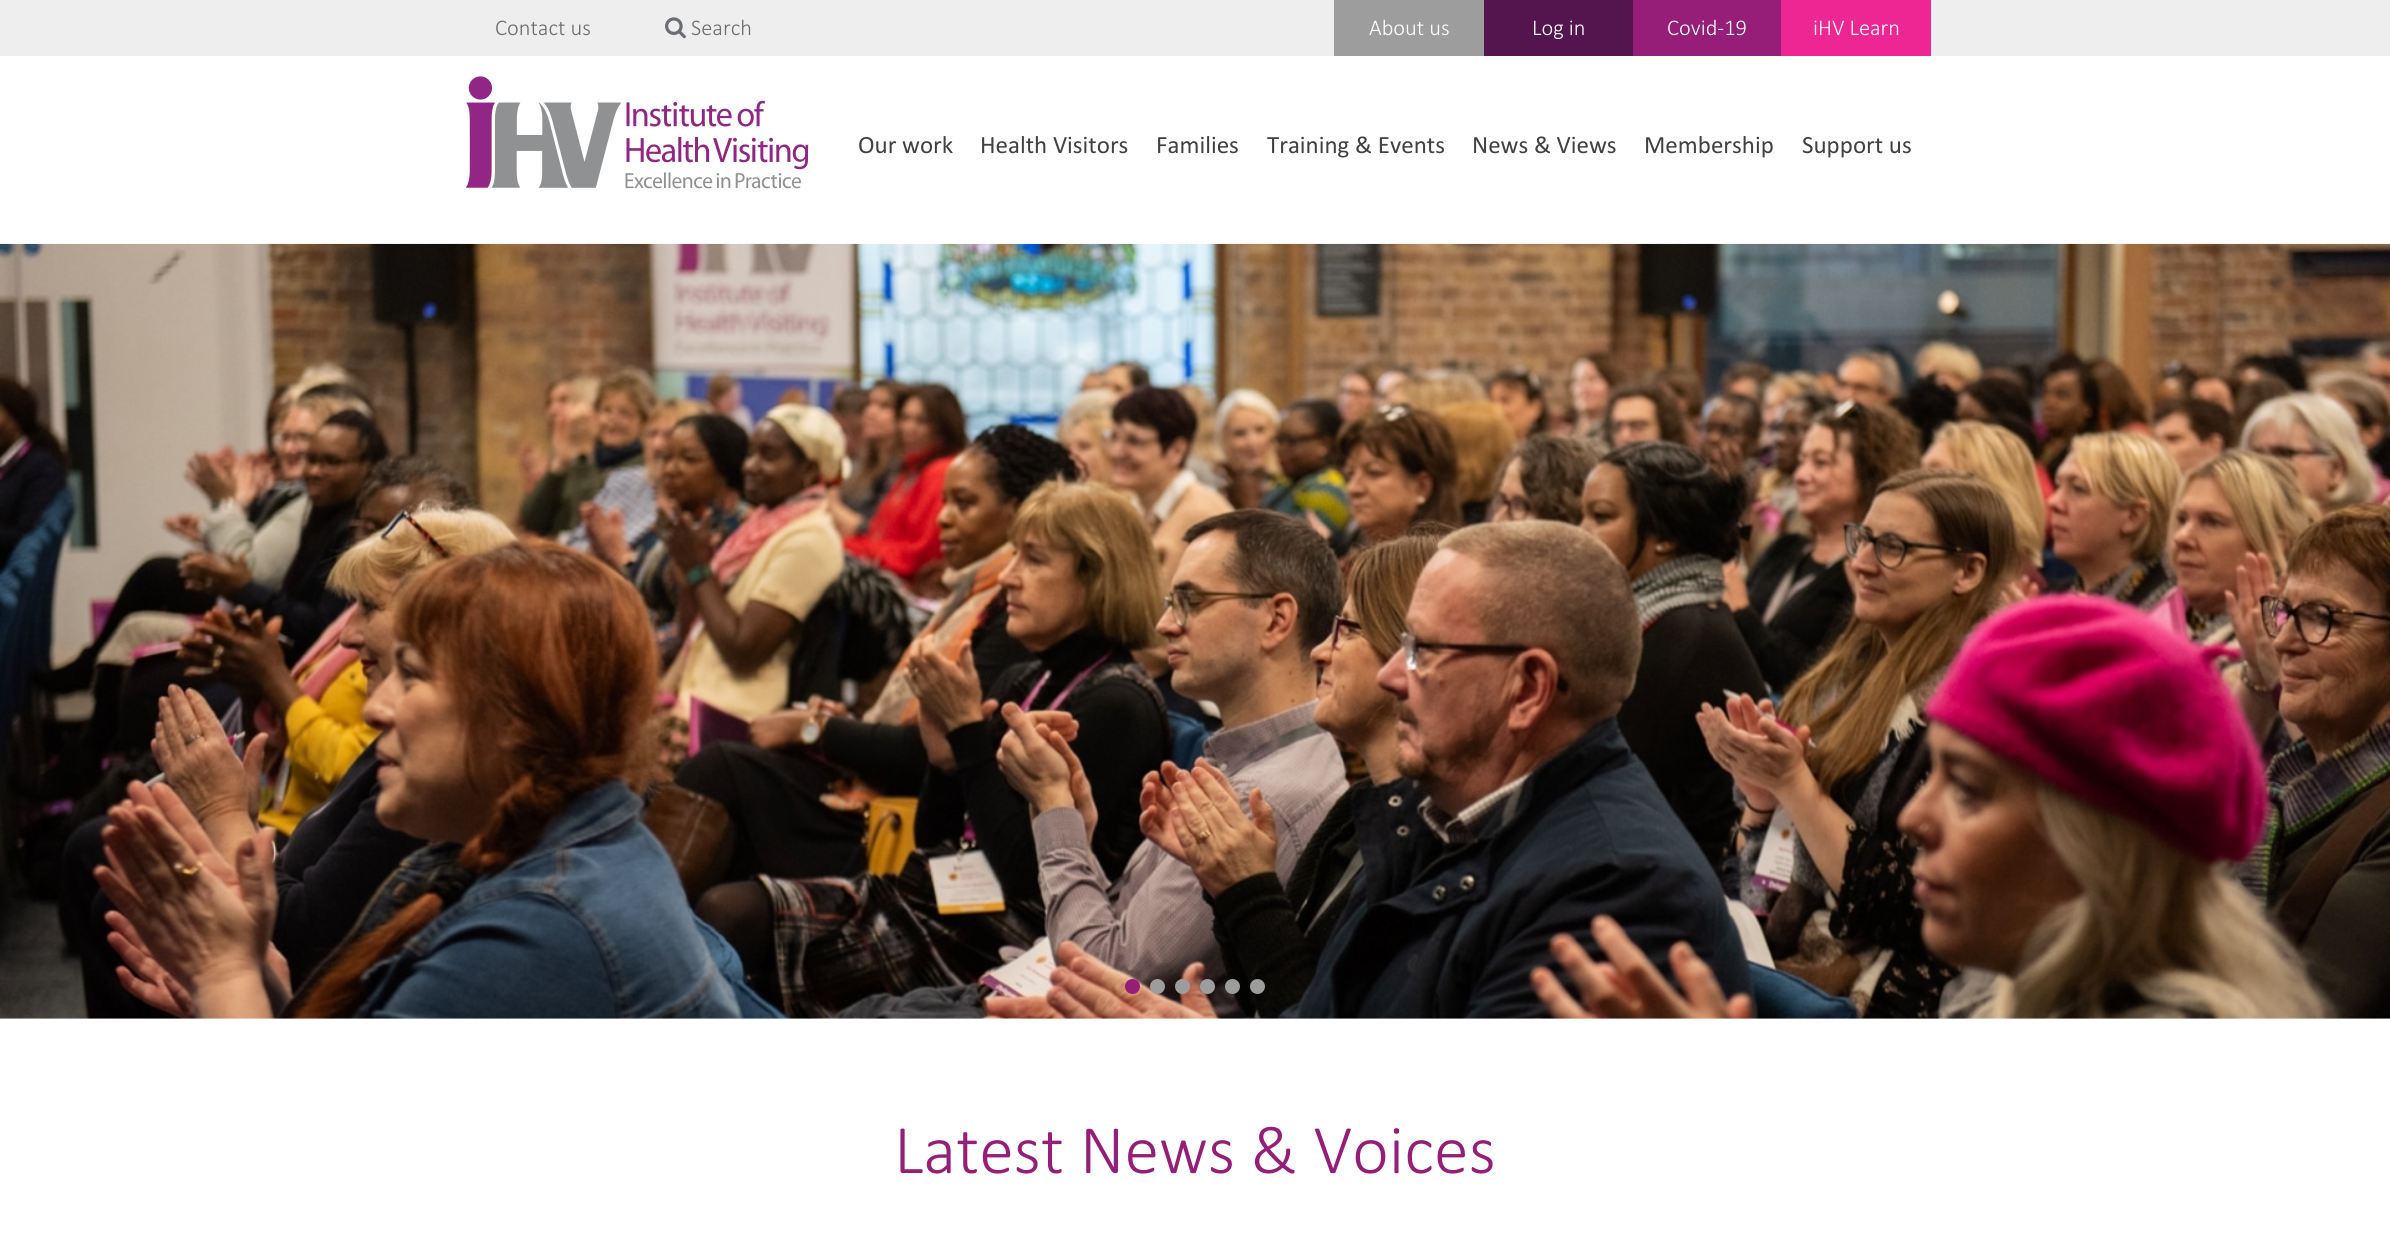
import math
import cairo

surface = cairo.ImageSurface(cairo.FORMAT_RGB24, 2390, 1233)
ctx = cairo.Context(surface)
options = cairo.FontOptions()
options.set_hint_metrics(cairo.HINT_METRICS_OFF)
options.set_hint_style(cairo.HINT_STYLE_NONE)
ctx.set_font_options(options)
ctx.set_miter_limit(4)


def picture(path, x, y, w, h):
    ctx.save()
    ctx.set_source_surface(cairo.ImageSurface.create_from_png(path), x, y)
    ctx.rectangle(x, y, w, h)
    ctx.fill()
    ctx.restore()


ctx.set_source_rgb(1, 1, 1)
ctx.paint()
ctx.set_source_rgb(0.933, 0.933, 0.933)
ctx.rectangle(0, 0, 2390, 56)
ctx.fill()
ctx.select_font_face("Calibri Light")
ctx.set_font_size(22.5)
ctx.set_source_rgb(0.416, 0.427, 0.443)
ctx.move_to(495, 35)
ctx.show_text("Contact us")
picture("img1.png", 665, 17, 21, 22)
ctx.move_to(691, 35)
ctx.show_text("Search")
ctx.set_source_rgb(0.616, 0.616, 0.62)
ctx.rectangle(1334, 0, 150, 56)
ctx.fill()
ctx.set_source_rgb(1, 1, 1)
ctx.move_to(1369, 35)
ctx.show_text("About us")
ctx.set_source_rgb(0.329, 0.082, 0.306)
ctx.rectangle(1484, 0, 149, 56)
ctx.fill()
ctx.set_source_rgb(1, 1, 1)
ctx.move_to(1532, 35)
ctx.show_text("Log in")
ctx.set_source_rgb(0.588, 0.118, 0.475)
ctx.rectangle(1633, 0, 148, 56)
ctx.fill()
ctx.set_source_rgb(1, 1, 1)
ctx.move_to(1667, 35)
ctx.show_text("Covid-19")
ctx.set_source_rgb(0.929, 0.149, 0.576)
ctx.rectangle(1781, 0, 150, 56)
ctx.fill()
ctx.set_source_rgb(1, 1, 1)
ctx.move_to(1813, 35)
ctx.show_text("iHV Learn")
picture("img2.png", 465, 76, 344, 113)
ctx.select_font_face("Calibri")
ctx.set_font_size(25)
ctx.set_source_rgb(0.247, 0.255, 0.263)
ctx.move_to(858, 153)
ctx.show_text("Our work")
ctx.move_to(980, 153)
ctx.show_text("Health Visitors")
ctx.move_to(1156, 153)
ctx.show_text("Families")
ctx.move_to(1267, 153)
ctx.show_text("Training & Events")
ctx.move_to(1472, 153)
ctx.show_text("News & Views")
ctx.move_to(1644, 153)
ctx.show_text("Membership")
ctx.move_to(1802, 153)
ctx.show_text("Support us")
picture("img3.png", 0, 243, 2390, 776)
ctx.set_source_rgb(0.588, 0.118, 0.475)
ctx.arc(1132.5, 986.5, 7.5, 0, 2 * math.pi)
ctx.fill()
ctx.set_source_rgb(0.616, 0.616, 0.62)
ctx.arc(1157.5, 986.5, 7.5, 0, 2 * math.pi)
ctx.fill()
ctx.arc(1182.5, 986.5, 7.5, 0, 2 * math.pi)
ctx.fill()
ctx.arc(1207.5, 986.5, 7.5, 0, 2 * math.pi)
ctx.fill()
ctx.arc(1232.5, 986.5, 7.5, 0, 2 * math.pi)
ctx.fill()
ctx.arc(1257.5, 986.5, 7.5, 0, 2 * math.pi)
ctx.fill()
ctx.select_font_face("Calibri Light")
ctx.set_font_size(70)
ctx.set_source_rgb(0.588, 0.118, 0.475)
ctx.move_to(894, 1173)
ctx.show_text("Latest News & Voices")
surface.write_to_png("page.png")
